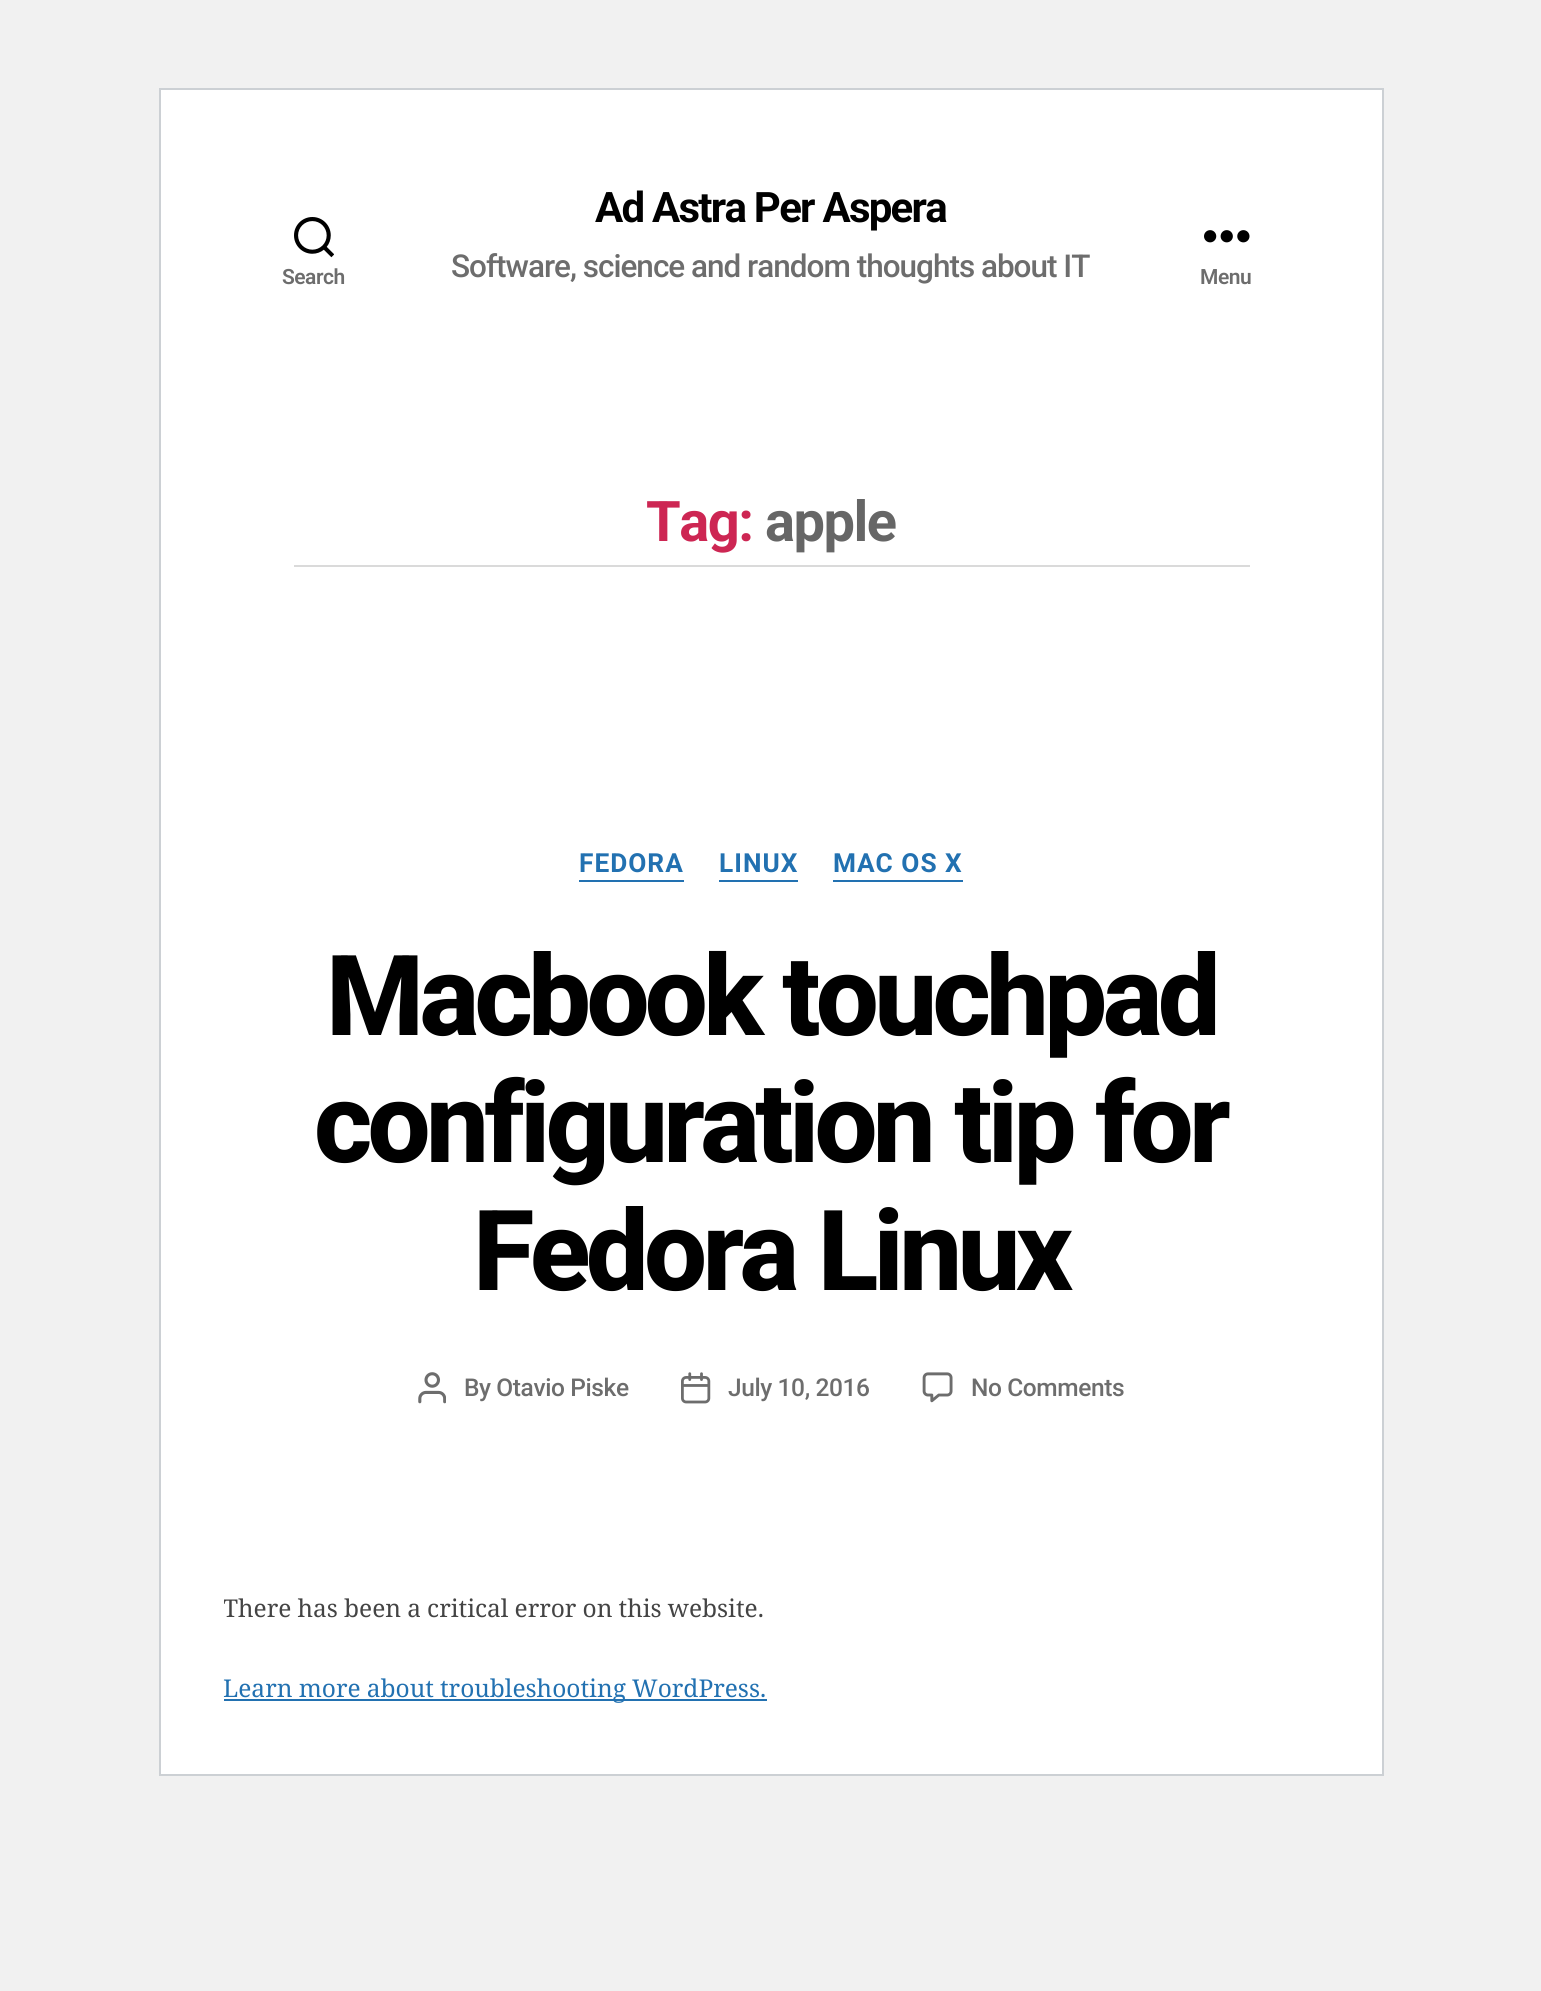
import math
import cairo

surface = cairo.ImageSurface(cairo.FORMAT_RGB24, 1541, 1991)
ctx = cairo.Context(surface)
options = cairo.FontOptions()
options.set_hint_metrics(cairo.HINT_METRICS_OFF)
options.set_hint_style(cairo.HINT_STYLE_NONE)
ctx.set_font_options(options)
ctx.set_miter_limit(4)


def spaced_text(x, y, s, letter, word):
    ctx.move_to(x, y)
    for ch in s:
        ctx.show_text(ch)
        ctx.rel_move_to(letter + word * (ch == ' '), 0)


def picture(path, x, y, w, h):
    ctx.save()
    ctx.set_source_surface(cairo.ImageSurface.create_from_png(path), x, y)
    ctx.rectangle(x, y, w, h)
    ctx.fill()
    ctx.restore()


ctx.set_source_rgb(0.945, 0.945, 0.945)
ctx.paint()
ctx.set_source_rgb(1, 1, 1)
ctx.rectangle(160, 89, 1223, 1686)
ctx.fill_preserve()
ctx.set_source_rgb(0.8, 0.816, 0.831)
ctx.stroke()
picture("img1.png", 294, 217, 40, 41)
ctx.select_font_face("Roboto SemiBold")
ctx.set_font_size(21)
ctx.set_source_rgb(0.427, 0.427, 0.427)
spaced_text(282, 284, "Search", -0.5, 0)
ctx.select_font_face("Roboto", cairo.FONT_SLANT_NORMAL, cairo.FONT_WEIGHT_BOLD)
ctx.set_font_size(42)
ctx.set_source_rgb(0, 0, 0)
spaced_text(595, 222, "Ad Astra Per Aspera", -1.75, 0)
ctx.select_font_face("Roboto Medium")
ctx.set_font_size(31.5)
ctx.set_source_rgb(0.427, 0.427, 0.427)
spaced_text(451, 277, "Software, science and random thoughts about IT", -1, 0)
picture("img2.png", 1204, 230, 46, 13)
ctx.select_font_face("Roboto SemiBold")
ctx.set_font_size(21)
spaced_text(1200, 284, "Menu", -0.5, 0)
ctx.set_source_rgb(0.855, 0.855, 0.855)
ctx.rectangle(294, 565, 956, 2)
ctx.fill()
ctx.select_font_face("Roboto", cairo.FONT_SLANT_NORMAL, cairo.FONT_WEIGHT_BOLD)
ctx.set_font_size(56)
ctx.set_source_rgb(0.804, 0.149, 0.325)
spaced_text(646, 541, "Tag:", -1.5, 0)
ctx.set_source_rgb(0.4, 0.4, 0.4)
spaced_text(765, 541, "apple", -1.5, 0)
ctx.set_source_rgb(0.133, 0.443, 0.694)
ctx.rectangle(579, 880, 105, 2)
ctx.fill()
ctx.set_font_size(26.25)
spaced_text(579, 872, "FEDORA", 1, 0)
ctx.rectangle(719, 880, 79, 2)
ctx.fill()
spaced_text(719, 872, "LINUX", 1, 0)
ctx.rectangle(833, 880, 130, 2)
ctx.fill()
spaced_text(833, 872, "MAC OS X", 1, 0)
ctx.select_font_face("Roboto ExtraBold")
ctx.set_font_size(112)
ctx.set_source_rgb(0, 0, 0)
spaced_text(326, 1035, "Macbook touchpad", -4.7, 0)
spaced_text(314, 1162, "configuration tip for", -4.7, 0)
spaced_text(473, 1290, "Fedora Linux", -4.7, 0)
picture("img3.png", 418, 1372, 28, 32)
ctx.select_font_face("Roboto Medium")
ctx.set_font_size(24.5)
ctx.set_source_rgb(0.427, 0.427, 0.427)
spaced_text(464, 1396, "By Otavio Piske", -0.4, 0)
picture("img4.png", 681, 1372, 30, 32)
spaced_text(728, 1396, "July 10, 2016", -0.4, 0)
picture("img5.png", 922, 1372, 31, 31)
spaced_text(971, 1396, "No Comments", -0.4, 0)
ctx.save()
ctx.rectangle(224, 350, 1096, 1393)
ctx.clip()
ctx.select_font_face("Noto Serif")
ctx.set_source_rgb(0.267, 0.267, 0.267)
spaced_text(223, 1617, "There has been a critical error on this website.", 0, -0.25)
ctx.restore()
ctx.set_source_rgb(0.133, 0.443, 0.694)
ctx.rectangle(224, 1699, 543, 2)
ctx.fill()
ctx.select_font_face("Noto Serif")
spaced_text(223, 1697, "Learn more about troubleshooting WordPress.", 0, -0.25)
surface.write_to_png("page.png")
